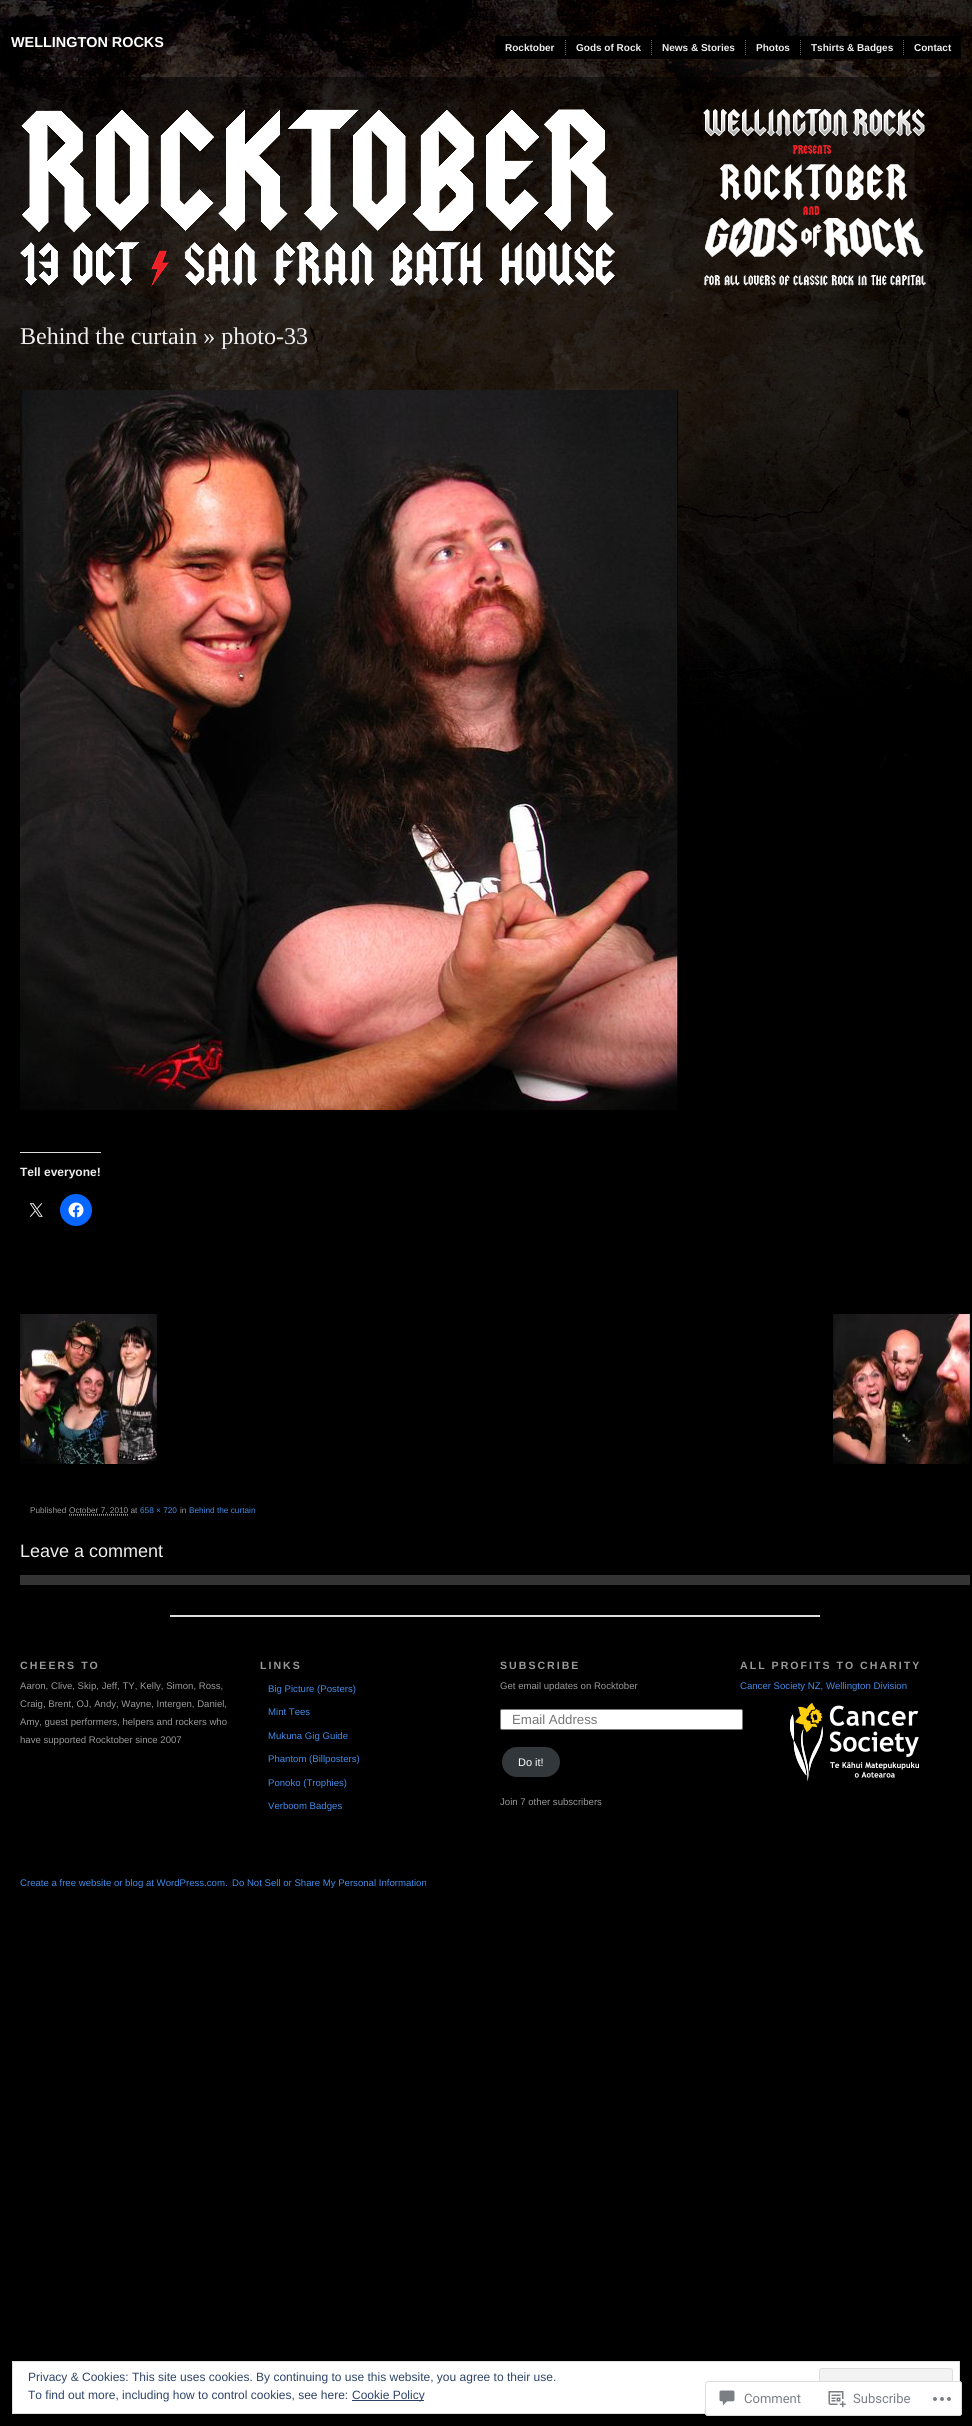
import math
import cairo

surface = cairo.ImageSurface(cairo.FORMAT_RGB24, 972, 2426)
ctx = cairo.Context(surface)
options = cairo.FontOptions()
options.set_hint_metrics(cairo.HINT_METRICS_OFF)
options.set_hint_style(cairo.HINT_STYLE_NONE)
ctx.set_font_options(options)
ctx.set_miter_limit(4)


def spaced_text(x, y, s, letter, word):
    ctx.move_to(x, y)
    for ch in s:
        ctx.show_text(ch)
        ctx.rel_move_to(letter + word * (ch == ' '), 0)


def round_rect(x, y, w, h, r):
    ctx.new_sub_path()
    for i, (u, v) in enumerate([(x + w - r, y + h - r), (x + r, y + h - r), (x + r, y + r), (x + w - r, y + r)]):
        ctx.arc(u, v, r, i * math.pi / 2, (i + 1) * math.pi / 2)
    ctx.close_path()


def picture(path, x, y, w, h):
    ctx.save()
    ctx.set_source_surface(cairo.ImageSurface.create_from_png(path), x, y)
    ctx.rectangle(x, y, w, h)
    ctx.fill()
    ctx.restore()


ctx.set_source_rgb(0, 0, 0)
ctx.paint()
picture("img1.png", 0, 0, 972, 768)
ctx.select_font_face("Liberation Sans", cairo.FONT_SLANT_NORMAL, cairo.FONT_WEIGHT_BOLD)
ctx.set_font_size(14.4)
ctx.set_source_rgb(1, 1, 1)
ctx.move_to(11, 47)
ctx.show_text("WELLINGTON ROCKS")
ctx.set_source_rgb(0, 0, 0)
ctx.rectangle(495, 36, 466, 23)
ctx.fill()
ctx.new_path()
ctx.move_to(565.5, 40)
ctx.line_to(565.5, 55)
ctx.set_source_rgb(0.4, 0.4, 0.4)
ctx.set_line_width(1)
ctx.set_dash([1, 1])
ctx.stroke()
ctx.set_font_size(10)
ctx.set_source_rgb(0.933, 0.933, 0.933)
ctx.move_to(505, 51)
ctx.show_text("Rocktober")
ctx.new_path()
ctx.move_to(651.5, 40)
ctx.line_to(651.5, 55)
ctx.set_source_rgb(0.4, 0.4, 0.4)
ctx.stroke()
ctx.set_source_rgb(0.933, 0.933, 0.933)
ctx.move_to(576, 51)
ctx.show_text("Gods of Rock")
ctx.new_path()
ctx.move_to(745.5, 40)
ctx.line_to(745.5, 55)
ctx.set_source_rgb(0.4, 0.4, 0.4)
ctx.stroke()
ctx.set_source_rgb(0.933, 0.933, 0.933)
ctx.move_to(662, 51)
ctx.show_text("News & Stories")
ctx.new_path()
ctx.move_to(800.5, 40)
ctx.line_to(800.5, 55)
ctx.set_source_rgb(0.4, 0.4, 0.4)
ctx.stroke()
ctx.set_source_rgb(0.933, 0.933, 0.933)
ctx.move_to(756, 51)
ctx.show_text("Photos")
ctx.new_path()
ctx.move_to(903.5, 40)
ctx.line_to(903.5, 55)
ctx.set_source_rgb(0.4, 0.4, 0.4)
ctx.stroke()
ctx.set_source_rgb(0.933, 0.933, 0.933)
ctx.move_to(811, 51)
ctx.show_text("Tshirts & Badges")
ctx.move_to(914, 51)
ctx.show_text("Contact")
ctx.set_source_rgba(0, 0, 0, 0.5)
ctx.rectangle(0, 77, 972, 679)
ctx.fill()
picture("img2.png", 20, 109, 906, 178)
ctx.select_font_face("Liberation Serif")
ctx.set_font_size(24)
ctx.set_source_rgb(0.933, 0.933, 0.933)
ctx.move_to(20, 344)
ctx.show_text("Behind the curtain » photo-33")
picture("img3.png", 20, 390, 658, 720)
ctx.set_source_rgb(0.863, 0.863, 0.871)
ctx.rectangle(20, 1152, 81, 1)
ctx.fill()
ctx.select_font_face("Liberation Sans", cairo.FONT_SLANT_NORMAL, cairo.FONT_WEIGHT_BOLD)
ctx.set_font_size(12)
ctx.set_source_rgb(0.933, 0.933, 0.933)
ctx.move_to(20, 1176)
ctx.show_text("Tell everyone!")
picture("img4.png", 29, 1203, 14, 14)
ctx.set_source_rgb(0.031, 0.4, 1)
ctx.arc(76, 1210, 16, 0, 2 * math.pi)
ctx.fill()
picture("img5.png", 68, 1202, 16, 16)
picture("img6.png", 20, 1314, 137, 150)
picture("img7.png", 833, 1314, 137, 150)
ctx.select_font_face("Liberation Sans")
ctx.set_font_size(8.25)
ctx.set_source_rgb(0.6, 0.6, 0.6)
ctx.move_to(30, 1513)
ctx.show_text("Published")
ctx.new_path()
ctx.move_to(69, 1514.5)
ctx.line_to(128.5, 1514.5)
ctx.stroke()
ctx.move_to(69, 1513)
ctx.show_text("October 7, 2010 at")
ctx.new_path()
ctx.move_to(69, 1515.5)
ctx.line_to(129, 1515.5)
ctx.set_source_rgb(0.4, 0.4, 0.4)
ctx.stroke()
ctx.set_source_rgb(0.259, 0.549, 0.906)
ctx.move_to(140, 1513)
ctx.show_text("658 × 720")
ctx.set_source_rgb(0.6, 0.6, 0.6)
ctx.move_to(180, 1513)
ctx.show_text("in")
ctx.set_source_rgb(0.259, 0.549, 0.906)
ctx.move_to(189, 1513)
ctx.show_text("Behind the curtain")
ctx.set_font_size(18)
ctx.set_source_rgb(0.933, 0.933, 0.933)
ctx.move_to(20, 1557)
ctx.show_text("Leave a comment")
ctx.set_source_rgb(0.2, 0.2, 0.2)
ctx.rectangle(20, 1575, 950, 10)
ctx.fill()
ctx.set_source_rgb(0.863, 0.863, 0.871)
ctx.rectangle(170, 1615, 650, 2)
ctx.fill()
ctx.select_font_face("Liberation Sans", cairo.FONT_SLANT_NORMAL, cairo.FONT_WEIGHT_BOLD)
ctx.set_font_size(10.6)
ctx.set_source_rgb(0.6, 0.6, 0.6)
spaced_text(20, 1669, "CHEERS TO", 2, 0)
ctx.select_font_face("Liberation Sans")
ctx.set_font_size(9.6)
ctx.move_to(20, 1689)
ctx.show_text("Aaron, Clive, Skip, Jeff, TY, Kelly, Simon, Ross,")
ctx.move_to(20, 1707)
ctx.show_text("Craig, Brent, OJ, Andy, Wayne, Intergen, Daniel,")
ctx.move_to(20, 1725)
ctx.show_text("Amy, guest performers, helpers and rockers who")
ctx.move_to(20, 1743)
ctx.show_text("have supported Rocktober since 2007")
ctx.select_font_face("Liberation Sans", cairo.FONT_SLANT_NORMAL, cairo.FONT_WEIGHT_BOLD)
ctx.set_font_size(10.6)
spaced_text(260, 1669, "LINKS", 2, 0)
ctx.select_font_face("Liberation Sans")
ctx.set_font_size(9.6)
ctx.set_source_rgb(0.259, 0.549, 0.906)
ctx.move_to(268, 1692)
ctx.show_text("Big Picture (Posters)")
ctx.move_to(268, 1715)
ctx.show_text("Mint Tees")
ctx.move_to(268, 1739)
ctx.show_text("Mukuna Gig Guide")
ctx.move_to(268, 1762)
ctx.show_text("Phantom (Billposters)")
ctx.move_to(268, 1786)
ctx.show_text("Ponoko (Trophies)")
ctx.move_to(268, 1809)
ctx.show_text("Verboom Badges")
ctx.select_font_face("Liberation Sans", cairo.FONT_SLANT_NORMAL, cairo.FONT_WEIGHT_BOLD)
ctx.set_font_size(10.6)
ctx.set_source_rgb(0.6, 0.6, 0.6)
spaced_text(500, 1669, "SUBSCRIBE", 2, 0)
ctx.select_font_face("Liberation Sans")
ctx.set_font_size(9.6)
ctx.move_to(500, 1689)
ctx.show_text("Get email updates on Rocktober")
ctx.set_source_rgb(1, 1, 1)
round_rect(500.5, 1709.5, 242, 20, 1.5)
ctx.fill_preserve()
ctx.set_source_rgb(0.463, 0.463, 0.463)
ctx.set_dash([])
ctx.stroke()
ctx.set_font_size(13.25)
ctx.set_source_rgb(0.459, 0.459, 0.459)
ctx.move_to(512, 1724)
ctx.show_text("Email Address")
ctx.set_source_rgb(0.196, 0.216, 0.235)
round_rect(501, 1746, 60, 32, 16)
ctx.fill_preserve()
ctx.set_source_rgb(0, 0, 0)
ctx.set_line_width(2)
ctx.stroke()
ctx.set_font_size(11)
ctx.set_source_rgb(1, 1, 1)
ctx.move_to(518, 1766)
ctx.show_text("Do it!")
ctx.set_font_size(9.6)
ctx.set_source_rgb(0.6, 0.6, 0.6)
ctx.move_to(500, 1805)
ctx.show_text("Join 7 other subscribers")
ctx.select_font_face("Liberation Sans", cairo.FONT_SLANT_NORMAL, cairo.FONT_WEIGHT_BOLD)
ctx.set_font_size(10.6)
spaced_text(740, 1669, "ALL PROFITS TO CHARITY", 2, 0)
ctx.select_font_face("Liberation Sans")
ctx.set_font_size(9.6)
ctx.set_source_rgb(0.259, 0.549, 0.906)
ctx.move_to(740, 1689)
ctx.show_text("Cancer Society NZ, Wellington Division")
picture("img8.png", 790, 1703, 129, 78)
ctx.move_to(20, 1886)
ctx.show_text("Create a free website or blog at WordPress.com.")
ctx.move_to(232, 1886)
ctx.show_text("Do Not Sell or Share My Personal Information")
ctx.set_source_rgb(1, 1, 1)
ctx.rectangle(12.5, 2361.5, 947, 52)
ctx.fill_preserve()
ctx.set_source_rgb(0.871, 0.871, 0.871)
ctx.set_line_width(1)
ctx.stroke()
ctx.set_source_rgb(0.953, 0.953, 0.953)
round_rect(819.5, 2368.5, 133, 38, 2.5)
ctx.fill_preserve()
ctx.set_source_rgb(0.871, 0.871, 0.871)
ctx.stroke()
ctx.set_source_rgba(1, 1, 1, 0.98)
round_rect(705, 2381, 257, 35, 3)
ctx.fill()
round_rect(705.5, 2381.5, 256, 34, 2.5)
ctx.set_source_rgba(0.863, 0.863, 0.871, 0.98)
ctx.stroke()
picture("img9.png", 719, 2390, 16, 16)
ctx.select_font_face("Roboto")
ctx.set_font_size(13)
ctx.set_source_rgb(0.482, 0.498, 0.522)
ctx.move_to(744, 2403)
ctx.show_text("Comment")
picture("img10.png", 828, 2391, 18, 17)
ctx.move_to(853, 2403)
ctx.show_text("Subscribe")
picture("img11.png", 933, 2397, 18, 4)
ctx.select_font_face("Liberation Sans")
ctx.set_font_size(12)
ctx.set_source_rgb(0.18, 0.267, 0.404)
ctx.move_to(28, 2381)
ctx.show_text("Privacy & Cookies: This site uses cookies. By continuing to use this website, you agree to their use.")
ctx.move_to(28, 2399)
ctx.show_text("To find out more, including how to control cookies, see here:")
ctx.rectangle(352, 2400, 72, 1)
ctx.fill()
ctx.move_to(352, 2399)
ctx.show_text("Cookie Policy")
surface.write_to_png("page.png")
